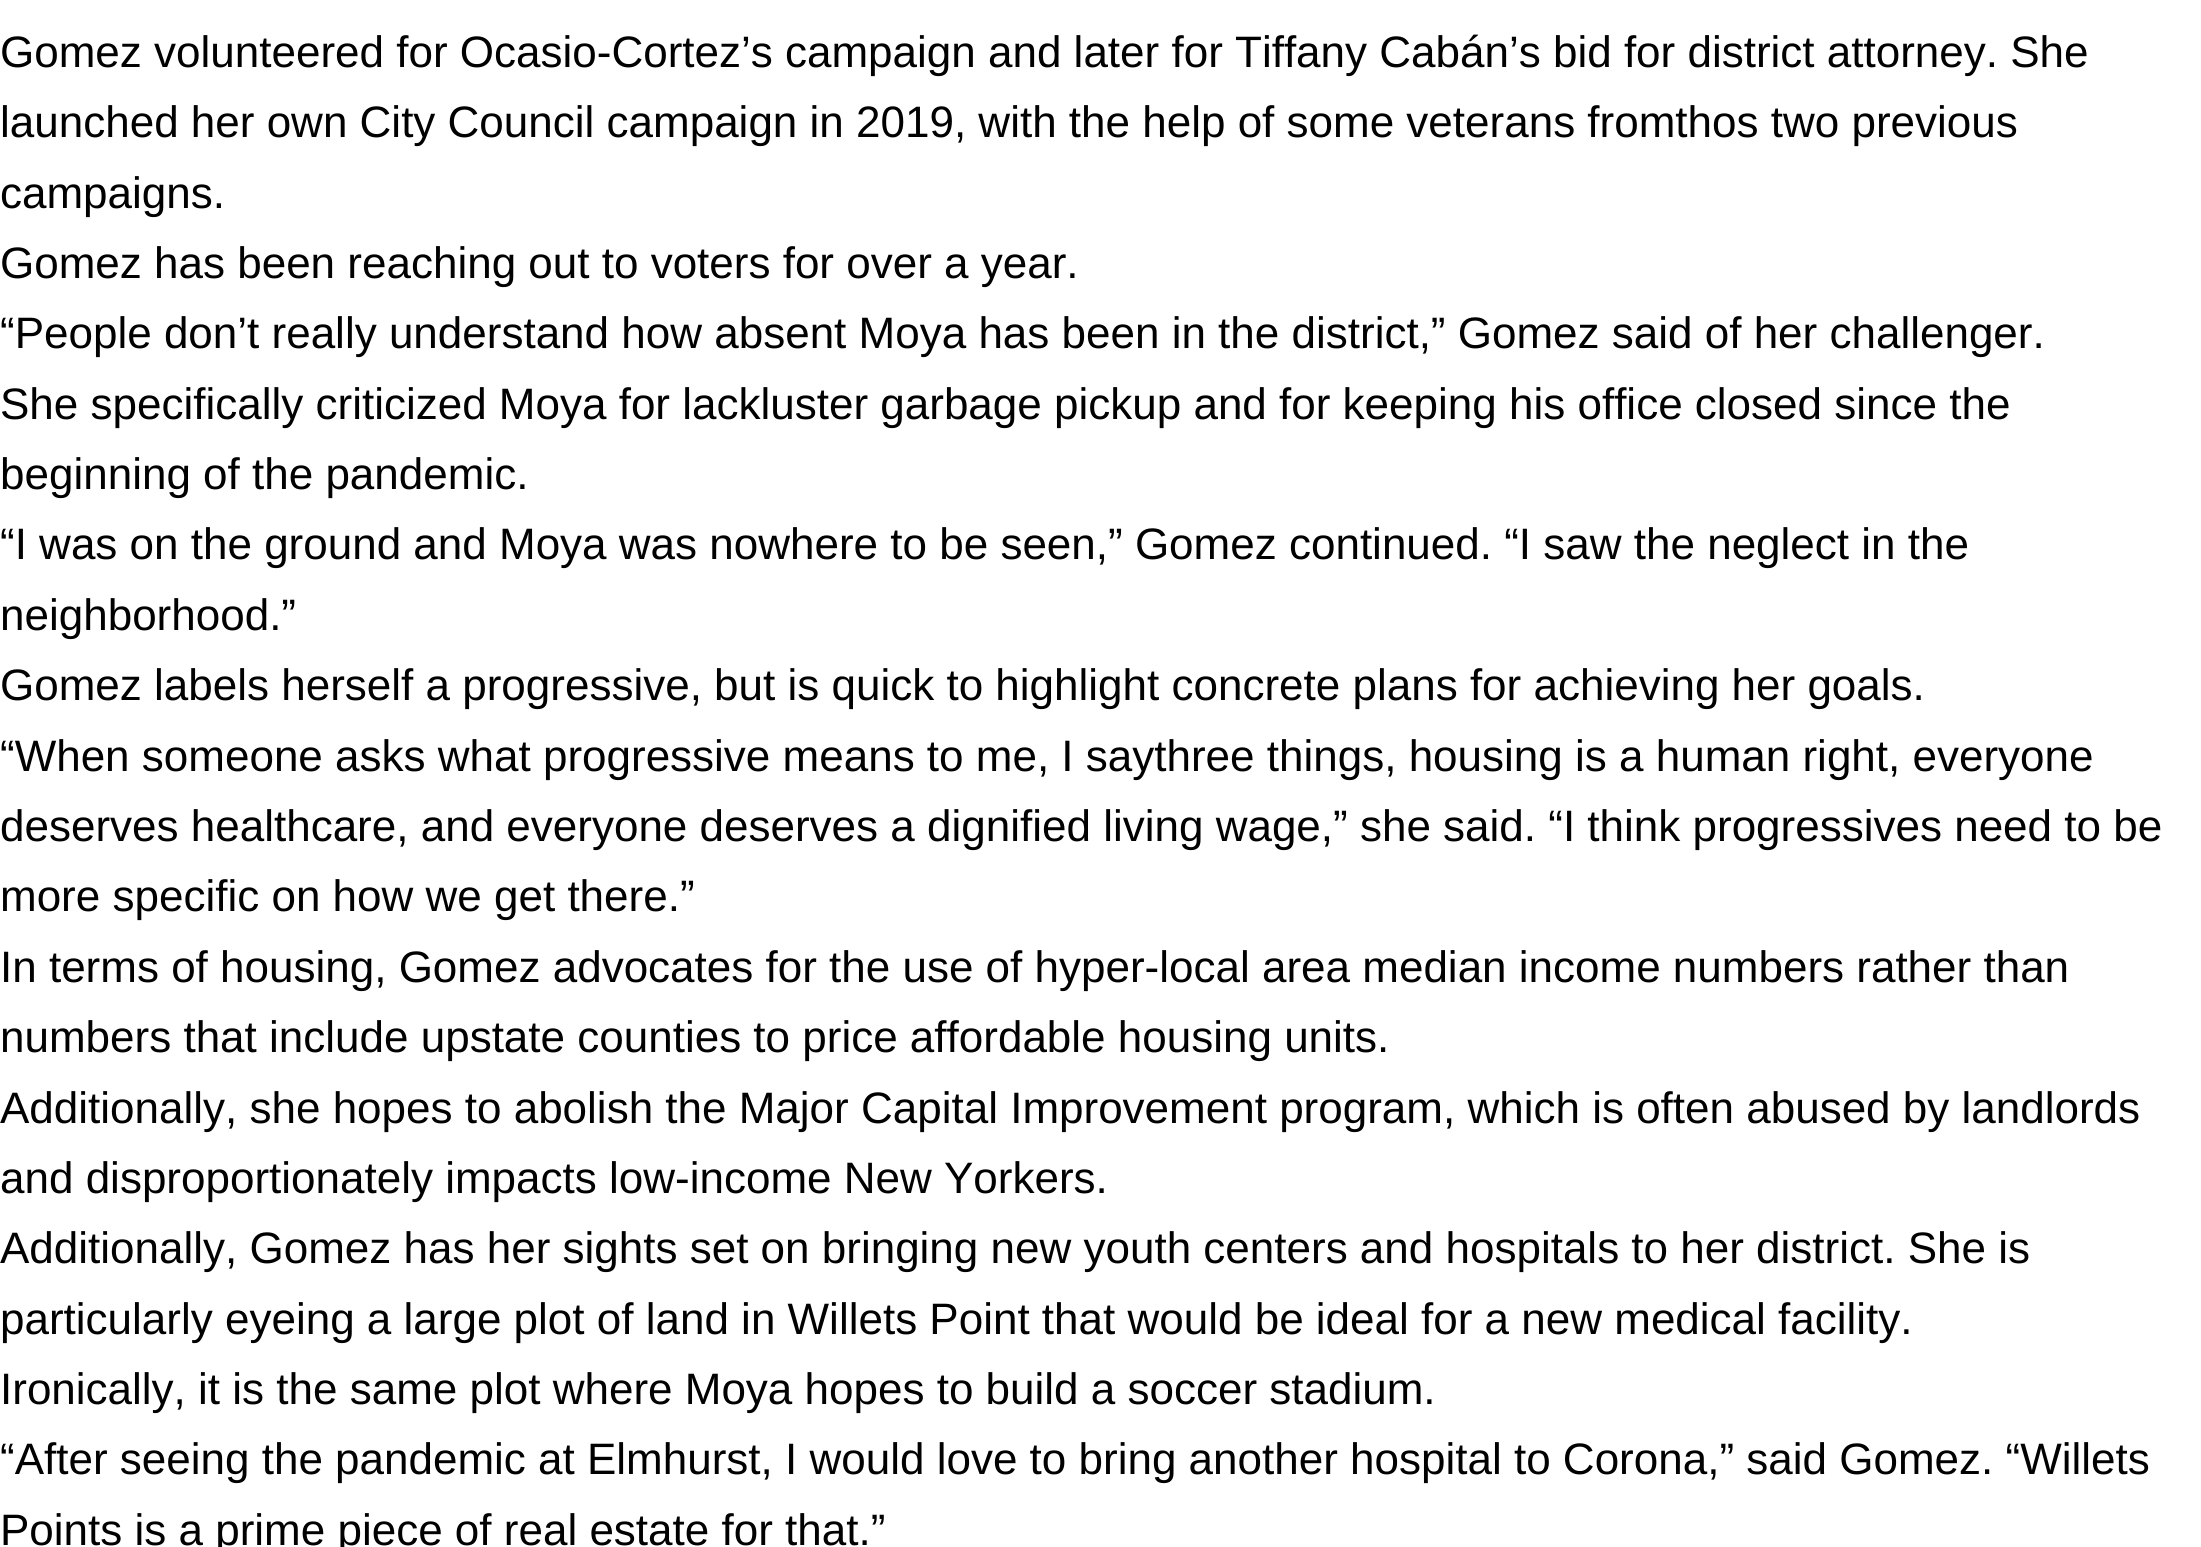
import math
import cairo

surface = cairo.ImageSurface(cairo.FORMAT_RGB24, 2201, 1547)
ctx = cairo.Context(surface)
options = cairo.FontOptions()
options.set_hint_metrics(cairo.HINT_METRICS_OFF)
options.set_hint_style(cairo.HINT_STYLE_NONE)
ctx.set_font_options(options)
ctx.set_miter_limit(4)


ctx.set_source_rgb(1, 1, 1)
ctx.paint()
ctx.select_font_face("Liberation Sans")
ctx.set_font_size(44)
ctx.set_source_rgb(0, 0, 0)
ctx.move_to(0, 67)
ctx.show_text("Gomez volunteered for Ocasio-Cortez’s campaign and later for Tiffany Cabán’s bid for district attorney. She")
ctx.move_to(0, 137)
ctx.show_text("launched her own City Council campaign in 2019, with the help of some veterans fromthos two previous")
ctx.move_to(0, 208)
ctx.show_text("campaigns.")
ctx.move_to(0, 278)
ctx.show_text("Gomez has been reaching out to voters for over a year.")
ctx.move_to(0, 348)
ctx.show_text("“People don’t really understand how absent Moya has been in the district,” Gomez said of her challenger.")
ctx.move_to(0, 419)
ctx.show_text("She specifically criticized Moya for lackluster garbage pickup and for keeping his office closed since the")
ctx.move_to(0, 489)
ctx.show_text("beginning of the pandemic.")
ctx.move_to(0, 559)
ctx.show_text("“I was on the ground and Moya was nowhere to be seen,” Gomez continued. “I saw the neglect in the")
ctx.move_to(0, 630)
ctx.show_text("neighborhood.”")
ctx.move_to(0, 700)
ctx.show_text("Gomez labels herself a progressive, but is quick to highlight concrete plans for achieving her goals.")
ctx.move_to(0, 771)
ctx.show_text("“When someone asks what progressive means to me, I saythree things, housing is a human right, everyone")
ctx.move_to(0, 841)
ctx.show_text("deserves healthcare, and everyone deserves a dignified living wage,” she said. “I think progressives need to be")
ctx.move_to(0, 911)
ctx.show_text("more specific on how we get there.”")
ctx.move_to(0, 982)
ctx.show_text("In terms of housing, Gomez advocates for the use of hyper-local area median income numbers rather than")
ctx.move_to(0, 1052)
ctx.show_text("numbers that include upstate counties to price affordable housing units.")
ctx.move_to(0, 1123)
ctx.show_text("Additionally, she hopes to abolish the Major Capital Improvement program, which is often abused by landlords")
ctx.move_to(0, 1193)
ctx.show_text("and disproportionately impacts low-income New Yorkers.")
ctx.move_to(0, 1263)
ctx.show_text("Additionally, Gomez has her sights set on bringing new youth centers and hospitals to her district. She is")
ctx.move_to(0, 1334)
ctx.show_text("particularly eyeing a large plot of land in Willets Point that would be ideal for a new medical facility.")
ctx.move_to(0, 1404)
ctx.show_text("Ironically, it is the same plot where Moya hopes to build a soccer stadium.")
ctx.move_to(0, 1474)
ctx.show_text("“After seeing the pandemic at Elmhurst, I would love to bring another hospital to Corona,” said Gomez. “Willets")
ctx.move_to(0, 1545)
ctx.show_text("Points is a prime piece of real estate for that.”")
surface.write_to_png("page.png")
